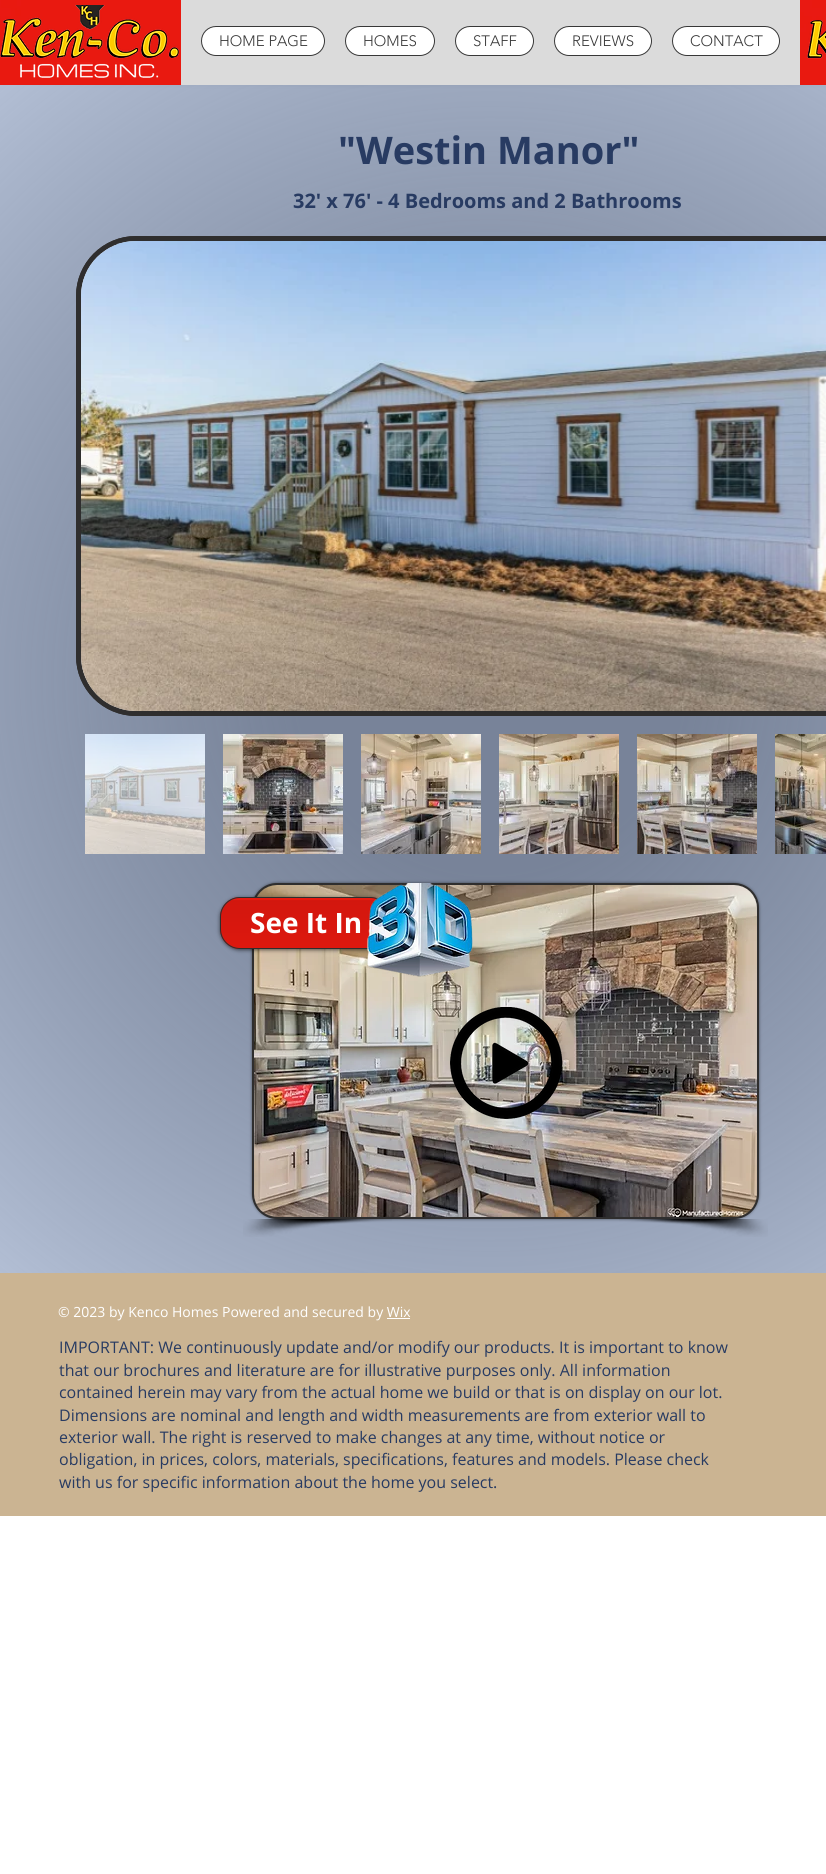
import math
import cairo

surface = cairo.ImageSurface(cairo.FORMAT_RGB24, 826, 1874)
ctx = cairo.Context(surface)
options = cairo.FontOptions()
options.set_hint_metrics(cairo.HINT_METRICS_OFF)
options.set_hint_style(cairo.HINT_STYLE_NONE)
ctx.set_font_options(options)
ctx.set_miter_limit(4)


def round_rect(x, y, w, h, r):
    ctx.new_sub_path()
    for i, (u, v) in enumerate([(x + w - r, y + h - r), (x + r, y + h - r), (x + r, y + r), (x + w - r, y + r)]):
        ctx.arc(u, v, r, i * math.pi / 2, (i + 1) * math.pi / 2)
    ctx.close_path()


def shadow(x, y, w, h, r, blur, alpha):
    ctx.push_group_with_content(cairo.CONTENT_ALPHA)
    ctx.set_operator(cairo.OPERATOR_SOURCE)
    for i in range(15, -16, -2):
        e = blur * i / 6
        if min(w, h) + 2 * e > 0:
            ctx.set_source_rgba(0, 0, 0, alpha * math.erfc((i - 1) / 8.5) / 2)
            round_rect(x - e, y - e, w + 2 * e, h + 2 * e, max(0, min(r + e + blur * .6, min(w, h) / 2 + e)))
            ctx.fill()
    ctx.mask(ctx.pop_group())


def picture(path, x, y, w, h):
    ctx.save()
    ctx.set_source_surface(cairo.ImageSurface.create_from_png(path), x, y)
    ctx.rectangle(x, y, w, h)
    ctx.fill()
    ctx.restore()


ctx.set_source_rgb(1, 1, 1)
ctx.paint()
ctx.set_source_rgb(0, 0, 0)
shadow(0, 0, 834, 85, 0, 2.5, 0.7)
ctx.set_source_rgb(0.859, 0.859, 0.859)
ctx.rectangle(181, 0, 619, 85)
ctx.fill()
picture("img1.png", 0, 0, 181, 85)
picture("img2.png", 800, 0, 26, 85)
picture("img3.png", 0, 5, 179, 73)
ctx.set_source_rgb(1, 1, 1)
round_rect(201.5, 26.5, 123, 29, 14.5)
ctx.fill_preserve()
ctx.set_source_rgb(0.22, 0.22, 0.22)
ctx.set_line_width(1)
ctx.stroke()
ctx.select_font_face("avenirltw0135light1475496 Light")
ctx.set_font_size(15)
ctx.move_to(219, 46)
ctx.show_text("HOME PAGE")
ctx.set_source_rgb(1, 1, 1)
round_rect(345.5, 26.5, 89, 29, 14.5)
ctx.fill_preserve()
ctx.set_source_rgb(0.22, 0.22, 0.22)
ctx.stroke()
ctx.move_to(363, 46)
ctx.show_text("HOMES")
ctx.set_source_rgb(1, 1, 1)
round_rect(455.5, 26.5, 78, 29, 14.5)
ctx.fill_preserve()
ctx.set_source_rgb(0.22, 0.22, 0.22)
ctx.stroke()
ctx.move_to(473, 46)
ctx.show_text("STAFF")
ctx.set_source_rgb(1, 1, 1)
round_rect(554.5, 26.5, 97, 29, 14.5)
ctx.fill_preserve()
ctx.set_source_rgb(0.22, 0.22, 0.22)
ctx.stroke()
ctx.move_to(572, 46)
ctx.show_text("REVIEWS")
ctx.set_source_rgb(1, 1, 1)
round_rect(672.5, 26.5, 107, 29, 14.5)
ctx.fill_preserve()
ctx.set_source_rgb(0.22, 0.22, 0.22)
ctx.stroke()
ctx.move_to(690, 46)
ctx.show_text("CONTACT")
picture("img4.png", 807, 20, 19, 39)
gradient = cairo.RadialGradient(490, 679, 0, 490, 679, 770)
gradient.add_color_stop_rgba(0.25, 0.337, 0.392, 0.498, 0.8)
gradient.add_color_stop_rgba(1, 0.698, 0.745, 0.831, 1)
ctx.set_source(gradient)
ctx.rectangle(0, 85, 826, 1188)
ctx.fill()
ctx.select_font_face("Open Sans", cairo.FONT_SLANT_NORMAL, cairo.FONT_WEIGHT_BOLD)
ctx.set_font_size(38)
ctx.set_source_rgb(0.157, 0.231, 0.384)
ctx.move_to(338, 164)
ctx.show_text("\"Westin Manor\"")
ctx.set_font_size(20)
ctx.move_to(293, 208)
ctx.show_text("32' x 76' - 4 Bedrooms and 2 Bathrooms")
round_rect(78.5, 238.5, 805, 475, 57.5)
ctx.set_source_rgb(0.184, 0.18, 0.18)
ctx.set_line_width(5)
ctx.stroke()
round_rect(78.5, 238.5, 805, 475, 57.5)
ctx.stroke()
ctx.set_source_rgb(0.8, 0.8, 0.8)
round_rect(81, 241, 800, 470, 55)
ctx.fill()
picture("img5.png", 81, 241, 745, 470)
picture("img6.png", 85, 734, 120, 120)
picture("img7.png", 223, 734, 120, 120)
picture("img8.png", 361, 734, 120, 120)
picture("img9.png", 499, 734, 120, 120)
picture("img10.png", 637, 734, 120, 120)
picture("img11.png", 775, 734, 51, 120)
ctx.set_source_rgb(0, 0, 0)
shadow(252, 883, 507, 336, 25, 1.5, 0.5)
ctx.set_source_rgb(0.184, 0.18, 0.18)
round_rect(253, 884, 505, 334, 24)
ctx.fill_preserve()
ctx.set_line_width(2)
ctx.stroke()
picture("img12.png", 254, 885, 503, 332)
picture("img13.png", 243, 1219, 149, 18)
picture("img14.png", 619, 1219, 149, 18)
ctx.set_source_rgb(0, 0, 0)
shadow(220, 898, 170, 52, 20, 2, 0.6)
ctx.set_source_rgb(0.91, 0.098, 0.059)
round_rect(220, 897, 170, 52, 20)
ctx.fill()
picture("img15.png", 220, 900, 159, 49)
round_rect(220.5, 897.5, 169, 51, 19.5)
ctx.set_source_rgb(0.184, 0.18, 0.18)
ctx.set_line_width(1)
ctx.stroke()
ctx.set_font_size(28)
ctx.set_source_rgb(1, 1, 1)
ctx.move_to(250, 933)
ctx.show_text("See It In")
picture("img16.png", 367, 883, 106, 94)
picture("img17.png", 450, 1007, 113, 112)
ctx.set_source_rgb(0.796, 0.706, 0.573)
ctx.rectangle(0, 1273, 826, 243)
ctx.fill()
ctx.select_font_face("Open Sans")
ctx.set_font_size(14)
ctx.set_source_rgb(1, 1, 1)
ctx.move_to(58, 1317)
ctx.show_text("© 2023 by Kenco Homes Powered and secured by Wix")
ctx.rectangle(387, 1318, 23, 1)
ctx.fill()
ctx.set_font_size(16)
ctx.set_source_rgb(0.157, 0.231, 0.384)
ctx.move_to(59, 1353)
ctx.show_text("IMPORTANT: We continuously update and/or modify our products. It is important to know")
ctx.move_to(59, 1376)
ctx.show_text("that our brochures and literature are for illustrative purposes only. All information")
ctx.move_to(59, 1398)
ctx.show_text("contained herein may vary from the actual home we build or that is on display on our lot.")
ctx.move_to(59, 1421)
ctx.show_text("Dimensions are nominal and length and width measurements are from exterior wall to")
ctx.move_to(59, 1443)
ctx.show_text("exterior wall. The right is reserved to make changes at any time, without notice or")
ctx.move_to(59, 1465)
ctx.show_text("obligation, in prices, colors, materials, specifications, features and models. Please check")
ctx.move_to(59, 1488)
ctx.show_text("with us for specific information about the home you select.")
surface.write_to_png("page.png")
